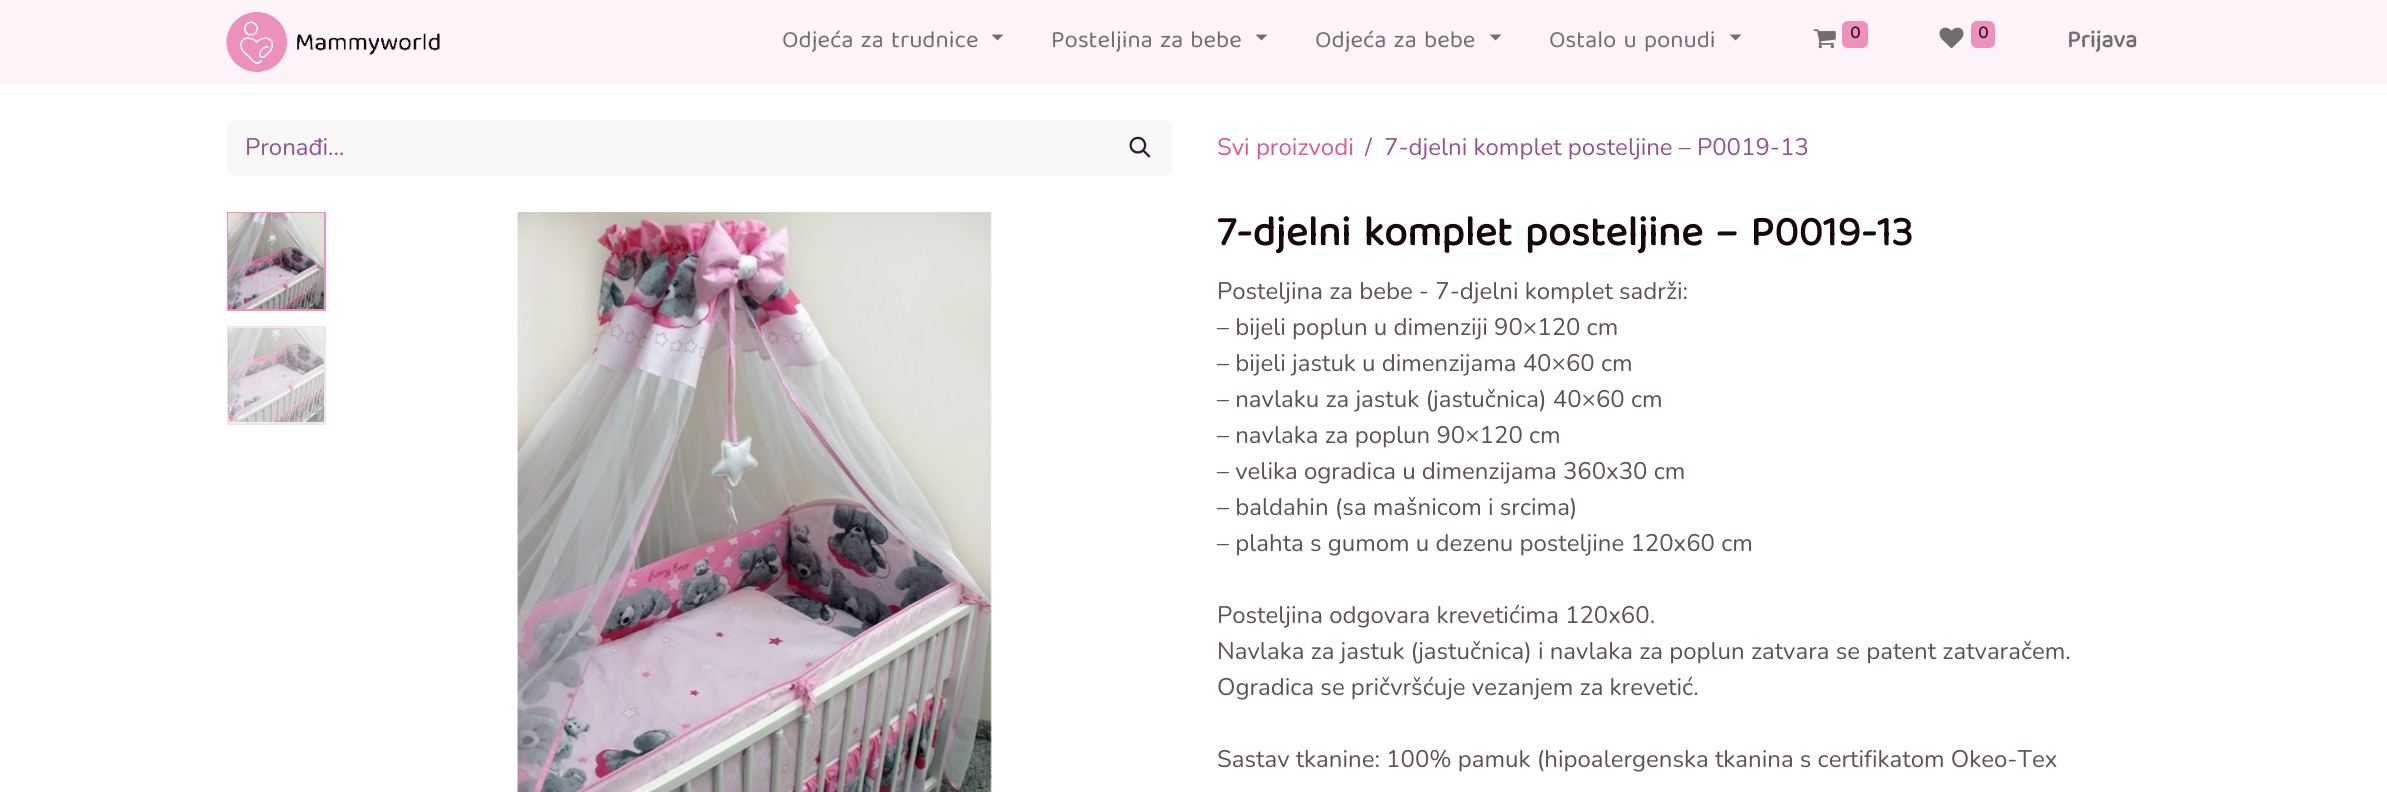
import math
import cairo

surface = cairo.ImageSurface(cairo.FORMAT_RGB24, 2387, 792)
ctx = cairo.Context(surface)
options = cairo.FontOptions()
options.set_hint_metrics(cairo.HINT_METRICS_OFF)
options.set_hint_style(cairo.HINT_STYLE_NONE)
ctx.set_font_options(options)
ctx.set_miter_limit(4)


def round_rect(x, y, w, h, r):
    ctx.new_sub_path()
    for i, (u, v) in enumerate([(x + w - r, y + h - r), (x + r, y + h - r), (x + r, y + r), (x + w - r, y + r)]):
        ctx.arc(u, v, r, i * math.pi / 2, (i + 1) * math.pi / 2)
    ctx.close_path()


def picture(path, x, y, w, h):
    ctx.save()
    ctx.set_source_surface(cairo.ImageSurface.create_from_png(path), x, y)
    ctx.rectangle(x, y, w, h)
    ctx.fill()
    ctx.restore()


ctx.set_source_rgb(1, 1, 1)
ctx.paint()
ctx.set_source_rgb(0.988, 0.957, 0.973)
ctx.rectangle(0, 0, 2387, 84)
ctx.fill()
picture("img1.png", 226, 12, 214, 60)
ctx.select_font_face("Baloo Tamma 2")
ctx.set_font_size(24)
ctx.set_source_rgb(0.443, 0.431, 0.439)
ctx.move_to(782, 47)
ctx.show_text("Odjeća za trudnice")
ctx.new_path()
ctx.move_to(991.5, 34.5)
ctx.line_to(1003.5, 34.5)
ctx.line_to(997.5, 40.5)
ctx.close_path()
ctx.fill()
ctx.move_to(1051, 47)
ctx.show_text("Posteljina za bebe")
ctx.new_path()
ctx.move_to(1255.5, 34.5)
ctx.line_to(1267.5, 34.5)
ctx.line_to(1261.5, 40.5)
ctx.close_path()
ctx.fill()
ctx.move_to(1315, 47)
ctx.show_text("Odjeća za bebe")
ctx.new_path()
ctx.move_to(1489.5, 34.5)
ctx.line_to(1501.5, 34.5)
ctx.line_to(1495.5, 40.5)
ctx.close_path()
ctx.fill()
ctx.move_to(1549, 47)
ctx.show_text("Ostalo u ponudi")
ctx.new_path()
ctx.move_to(1729.5, 34.5)
ctx.line_to(1741.5, 34.5)
ctx.line_to(1735.5, 40.5)
ctx.close_path()
ctx.fill()
picture("img2.png", 1813, 29, 23, 20)
ctx.set_source_rgb(0.929, 0.569, 0.737)
round_rect(1842, 21, 26, 27, 6)
ctx.fill()
ctx.select_font_face("Baloo Tamma 2", cairo.FONT_SLANT_NORMAL, cairo.FONT_WEIGHT_BOLD)
ctx.set_font_size(18)
ctx.set_source_rgb(0.192, 0.098, 0.184)
ctx.move_to(1850, 38)
ctx.show_text("0")
picture("img3.png", 1939, 27, 25, 22)
ctx.set_source_rgb(0.929, 0.569, 0.737)
round_rect(1971, 21, 24, 27, 6)
ctx.fill()
ctx.set_source_rgb(0.192, 0.098, 0.184)
ctx.move_to(1978, 38)
ctx.show_text("0")
ctx.set_font_size(24)
ctx.set_source_rgb(0.443, 0.431, 0.439)
ctx.move_to(2067, 47)
ctx.show_text("Prijava")
ctx.set_source_rgb(0.969, 0.969, 0.969)
ctx.new_path()
ctx.move_to(233, 120)
ctx.line_to(1110, 120)
ctx.line_to(1110, 176)
ctx.line_to(233, 176)
ctx.curve_to(229.5, 176, 227, 173.5, 227, 170)
ctx.line_to(227, 126)
ctx.curve_to(227, 122.5, 229.5, 120, 233, 120)
ctx.close_path()
ctx.fill()
ctx.select_font_face("Nunito ExtraLight")
ctx.set_source_rgb(0.584, 0.329, 0.569)
ctx.move_to(245, 155)
ctx.show_text("Pronađi...")
ctx.set_source_rgb(0.969, 0.969, 0.969)
ctx.new_path()
ctx.move_to(1109, 120)
ctx.line_to(1166, 120)
ctx.curve_to(1169.5, 120, 1172, 122.5, 1172, 126)
ctx.line_to(1172, 170)
ctx.curve_to(1172, 173.5, 1169.5, 176, 1166, 176)
ctx.line_to(1109, 176)
ctx.close_path()
ctx.fill()
picture("img4.png", 1129, 136, 22, 22)
ctx.set_source_rgb(0.859, 0.341, 0.584)
ctx.move_to(1217, 155)
ctx.show_text("Svi proizvodi")
ctx.set_source_rgb(0.584, 0.329, 0.569)
ctx.move_to(1365, 155)
ctx.show_text("/")
ctx.move_to(1384, 155)
ctx.show_text("7-djelni komplet posteljine – P0019-13")
ctx.rectangle(228, 213, 97, 97)
ctx.set_source_rgb(0.929, 0.569, 0.737)
ctx.stroke()
picture("img5.png", 228, 213, 96, 96)
ctx.rectangle(228, 327, 97, 97)
ctx.set_source_rgb(0.945, 0.886, 0.941)
ctx.stroke()
picture("img6.png", 228, 327, 96, 96)
picture("img7.png", 517, 212, 475, 580)
ctx.select_font_face("Baloo Tamma 2", cairo.FONT_SLANT_NORMAL, cairo.FONT_WEIGHT_BOLD)
ctx.set_font_size(42)
ctx.set_source_rgb(0.09, 0.031, 0.059)
ctx.move_to(1217, 245)
ctx.show_text("7-djelni komplet posteljine – P0019-13")
ctx.select_font_face("Nunito ExtraLight")
ctx.set_font_size(24)
ctx.set_source_rgb(0.365, 0.322, 0.341)
ctx.move_to(1217, 299)
ctx.show_text("Posteljina za bebe - 7-djelni komplet sadrži:")
ctx.move_to(1217, 335)
ctx.show_text("– bijeli poplun u dimenziji 90×120 cm")
ctx.move_to(1217, 371)
ctx.show_text("– bijeli jastuk u dimenzijama 40×60 cm")
ctx.move_to(1217, 407)
ctx.show_text("– navlaku za jastuk (jastučnica) 40×60 cm")
ctx.move_to(1217, 443)
ctx.show_text("– navlaka za poplun 90×120 cm")
ctx.move_to(1217, 479)
ctx.show_text("– velika ogradica u dimenzijama 360x30 cm")
ctx.move_to(1217, 515)
ctx.show_text("– baldahin (sa mašnicom i srcima)")
ctx.move_to(1217, 551)
ctx.show_text("– plahta s gumom u dezenu posteljine 120x60 cm")
ctx.move_to(1217, 623)
ctx.show_text("Posteljina odgovara krevetićima 120x60.")
ctx.move_to(1217, 659)
ctx.show_text("Navlaka za jastuk (jastučnica) i navlaka za poplun zatvara se patent zatvaračem.")
ctx.move_to(1217, 695)
ctx.show_text("Ogradica se pričvršćuje vezanjem za krevetić.")
ctx.move_to(1217, 767)
ctx.show_text("Sastav tkanine: 100% pamuk (hipoalergenska tkanina s certifikatom Okeo-Tex")
surface.write_to_png("page.png")
